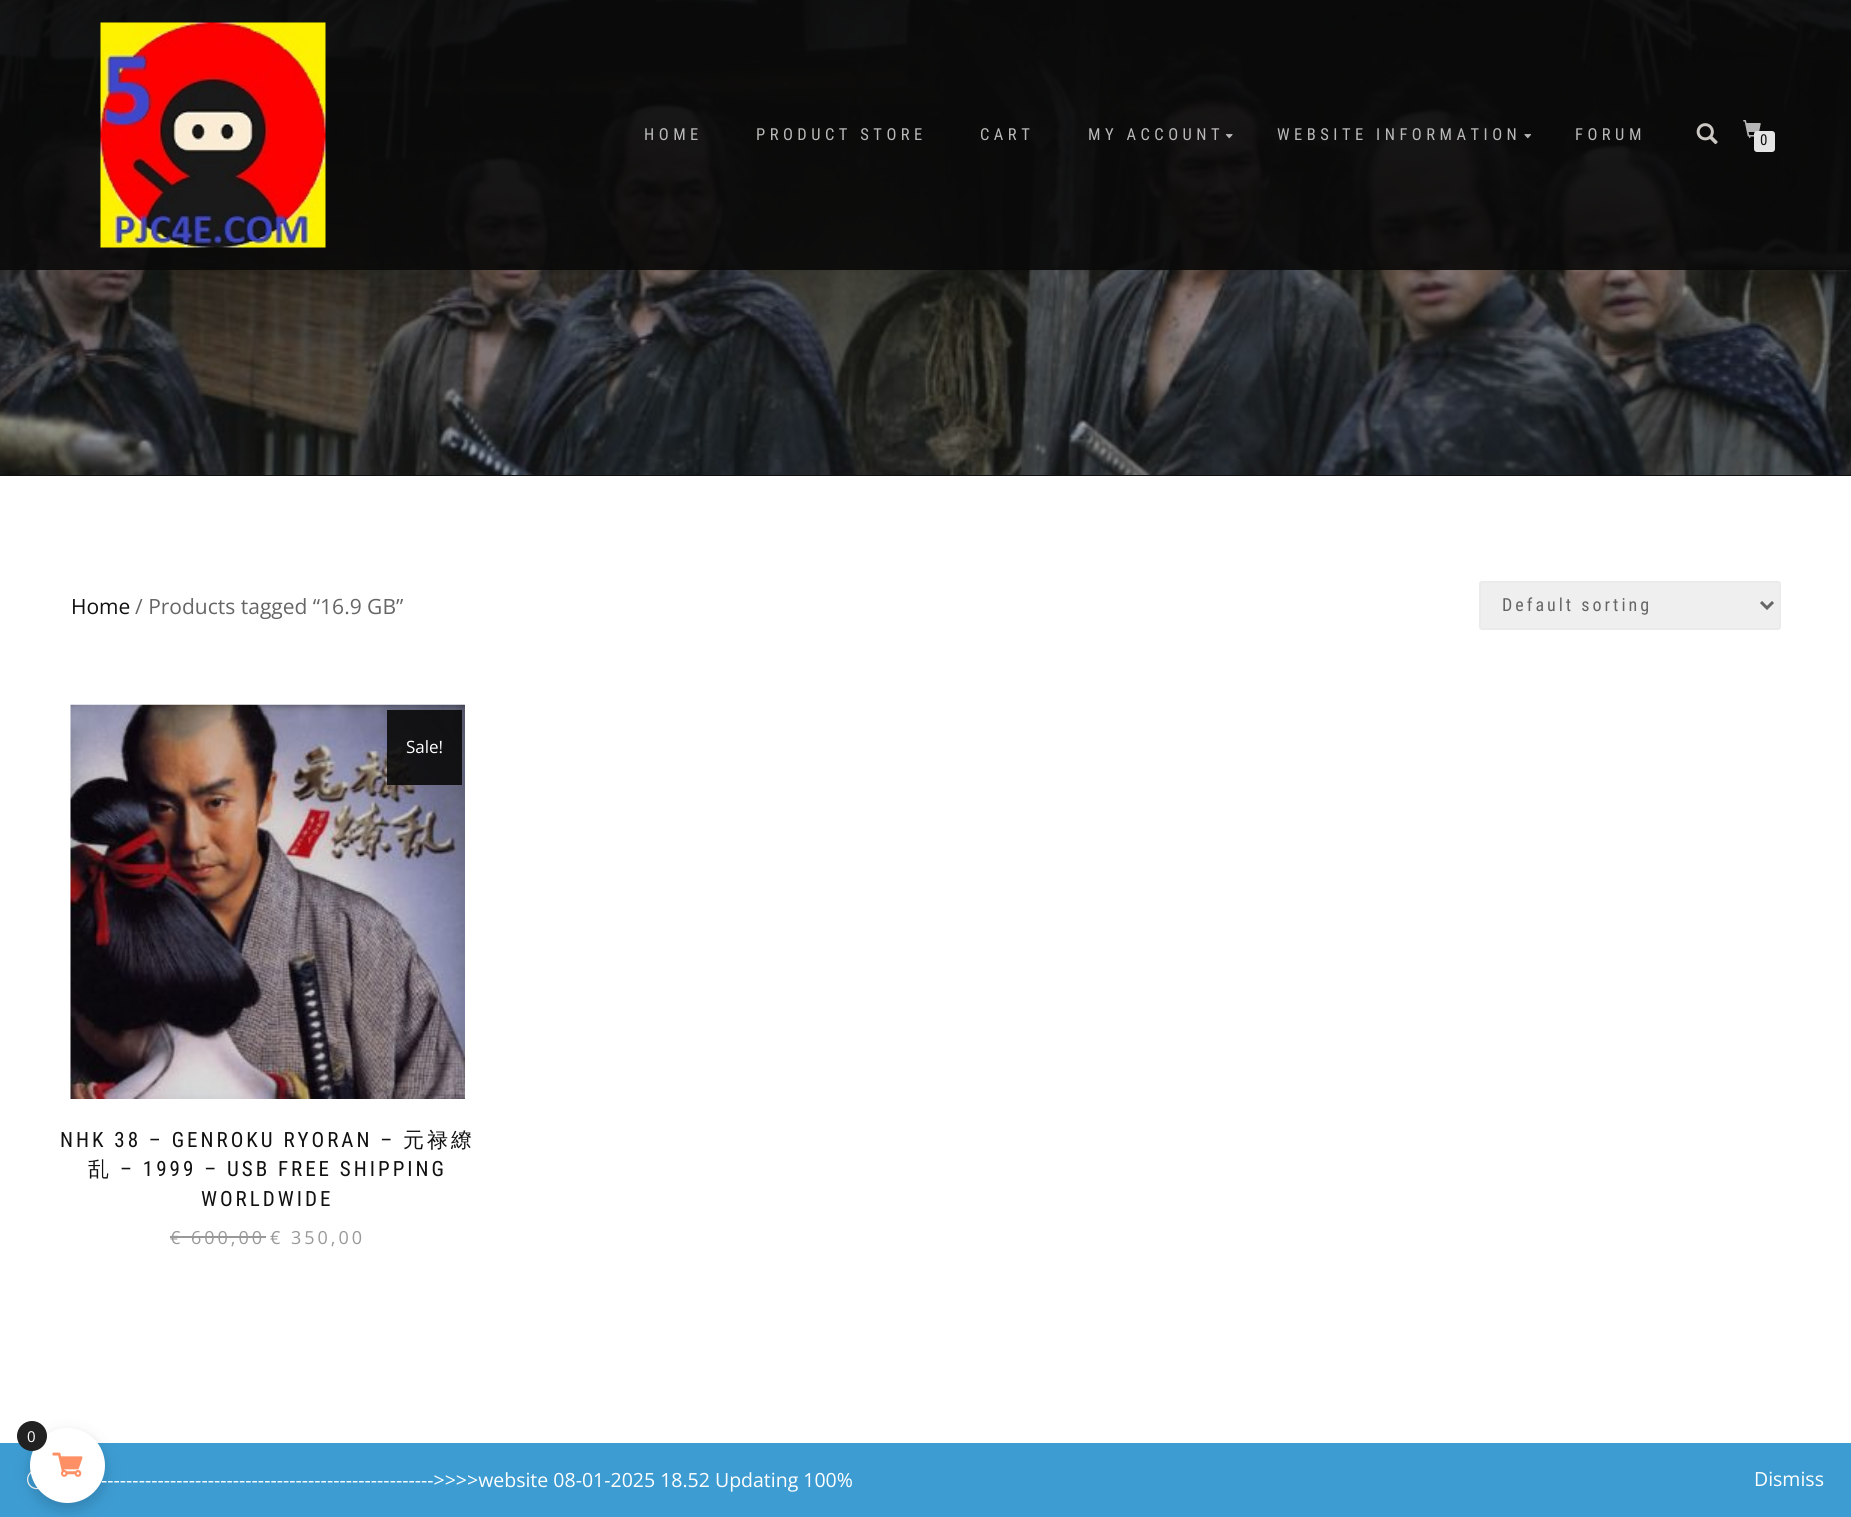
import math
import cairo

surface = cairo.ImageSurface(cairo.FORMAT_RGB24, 1851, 1517)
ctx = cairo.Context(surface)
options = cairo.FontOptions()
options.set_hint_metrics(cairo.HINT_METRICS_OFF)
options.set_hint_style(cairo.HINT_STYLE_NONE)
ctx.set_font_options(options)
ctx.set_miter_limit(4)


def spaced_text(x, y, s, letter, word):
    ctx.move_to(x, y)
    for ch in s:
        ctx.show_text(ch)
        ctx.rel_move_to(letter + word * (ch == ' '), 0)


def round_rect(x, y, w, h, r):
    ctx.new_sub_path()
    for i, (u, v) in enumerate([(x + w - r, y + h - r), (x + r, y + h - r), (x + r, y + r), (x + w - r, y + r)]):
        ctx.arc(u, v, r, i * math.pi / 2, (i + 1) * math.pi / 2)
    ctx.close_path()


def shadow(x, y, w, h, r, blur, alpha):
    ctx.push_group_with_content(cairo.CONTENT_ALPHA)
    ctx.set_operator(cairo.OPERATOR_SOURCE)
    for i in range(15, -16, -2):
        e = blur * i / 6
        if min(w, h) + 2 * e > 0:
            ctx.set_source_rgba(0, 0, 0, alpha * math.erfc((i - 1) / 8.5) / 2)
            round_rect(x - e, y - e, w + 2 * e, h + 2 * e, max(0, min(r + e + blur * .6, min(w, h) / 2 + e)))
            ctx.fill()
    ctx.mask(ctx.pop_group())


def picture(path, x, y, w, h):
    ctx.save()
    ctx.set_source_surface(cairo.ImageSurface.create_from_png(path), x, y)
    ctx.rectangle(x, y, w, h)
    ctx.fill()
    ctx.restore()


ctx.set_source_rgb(1, 1, 1)
ctx.paint()
picture("img6.png", 0, 0, 1851, 475)
ctx.set_source_rgba(0.039, 0.039, 0.039, 0.9)
ctx.rectangle(0, 0, 1851, 270)
ctx.fill()
picture("img1.png", 100, 22, 226, 226)
ctx.select_font_face("Roboto Condensed")
ctx.set_font_size(16.5)
ctx.set_source_rgb(0.729, 0.725, 0.725)
spaced_text(644, 140, "HOME", 4.5, 0)
spaced_text(756, 140, "PRODUCT STORE", 4.5, 0)
spaced_text(980, 140, "CART", 4.5, 0)
spaced_text(1088, 140, "MY ACCOUNT", 4.5, 0)
picture("img2.png", 1225, 134, 8, 5)
spaced_text(1277, 140, "WEBSITE INFORMATION", 4.5, 0)
picture("img3.png", 1524, 134, 8, 5)
spaced_text(1575, 140, "FORUM", 4.5, 0)
picture("img4.png", 1696, 123, 22, 22)
picture("img5.png", 1743, 120, 18, 18)
ctx.set_source_rgb(0.898, 0.898, 0.898)
round_rect(1754, 131, 21, 21, 3)
ctx.fill()
ctx.set_font_size(15)
ctx.set_source_rgb(0.067, 0.067, 0.067)
ctx.move_to(1760, 145)
ctx.show_text("0")
ctx.rectangle(0, 475, 1851, 1)
ctx.fill()
ctx.select_font_face("Open Sans")
ctx.set_font_size(21)
ctx.move_to(71, 614)
ctx.show_text("Home")
ctx.set_source_rgb(0.4, 0.4, 0.4)
ctx.move_to(135, 614)
ctx.show_text("/ Products tagged “16.9 GB”")
ctx.set_source_rgb(0.937, 0.937, 0.937)
round_rect(1480, 582, 300, 47, 2)
ctx.fill_preserve()
ctx.set_source_rgb(0.918, 0.918, 0.918)
ctx.stroke()
ctx.new_path()
ctx.move_to(1761, 602)
ctx.line_to(1767, 608)
ctx.line_to(1773, 602)
ctx.set_source_rgb(0.4, 0.4, 0.4)
ctx.set_line_width(3)
ctx.stroke()
ctx.select_font_face("Roboto Condensed")
ctx.set_font_size(18)
spaced_text(1502, 611, "Default sorting", 3, 0)
picture("img7.png", 70, 704, 395, 395)
ctx.set_source_rgba(0.039, 0.039, 0.039, 0.9)
ctx.rectangle(387, 710, 75, 75)
ctx.fill()
ctx.select_font_face("Open Sans")
ctx.set_font_size(17)
ctx.set_source_rgb(1, 1, 1)
ctx.move_to(406, 753)
ctx.show_text("Sale!")
ctx.select_font_face("Roboto Condensed")
ctx.set_font_size(21)
ctx.set_source_rgb(0.067, 0.067, 0.067)
spaced_text(60, 1147, "NHK 38 – GENROKU RYORAN –", 3, 0)
ctx.select_font_face("WenQuanYi Zen Hei Medium")
spaced_text(403, 1147, "元禄繚", 3, 0)
spaced_text(88, 1176, "乱", 3, 0)
ctx.select_font_face("Roboto Condensed")
spaced_text(120, 1176, "– 1999 – USB FREE SHIPPING", 3, 0)
spaced_text(201, 1206, "WORLDWIDE", 3, 0)
ctx.select_font_face("Open Sans")
ctx.set_font_size(18)
ctx.set_source_rgb(0.6, 0.6, 0.6)
spaced_text(170, 1244, "€ 600,00", 3, 0)
ctx.rectangle(170, 1236, 96, 2)
ctx.fill()
spaced_text(270, 1244, "€ 350,00", 3, 0)
ctx.set_source_rgb(0.239, 0.612, 0.824)
ctx.rectangle(0, 1443, 1851, 74)
ctx.fill()
picture("img9.png", 27, 1471, 12, 19)
ctx.set_source_rgb(0, 0, 0)
shadow(30, 1434, 75, 75, 37.5, 7.5, 0.17)
ctx.set_source_rgb(1, 1, 1)
ctx.arc(67.5, 1465.5, 37.5, 0, 2 * math.pi)
ctx.fill()
ctx.set_source_rgb(0.129, 0.129, 0.129)
ctx.arc(32, 1436, 15, 0, 2 * math.pi)
ctx.fill()
ctx.set_font_size(15)
ctx.set_source_rgb(1, 1, 1)
ctx.move_to(27, 1442)
ctx.show_text("0")
picture("img8.png", 52, 1452, 31, 25)
ctx.set_font_size(19.5)
ctx.move_to(101, 1487)
ctx.show_text("----------------------------------------------------->>>>website 08-01-2025 18.52 Updating 100%")
ctx.move_to(1754, 1486)
ctx.show_text("Dismiss")
surface.write_to_png("page.png")
